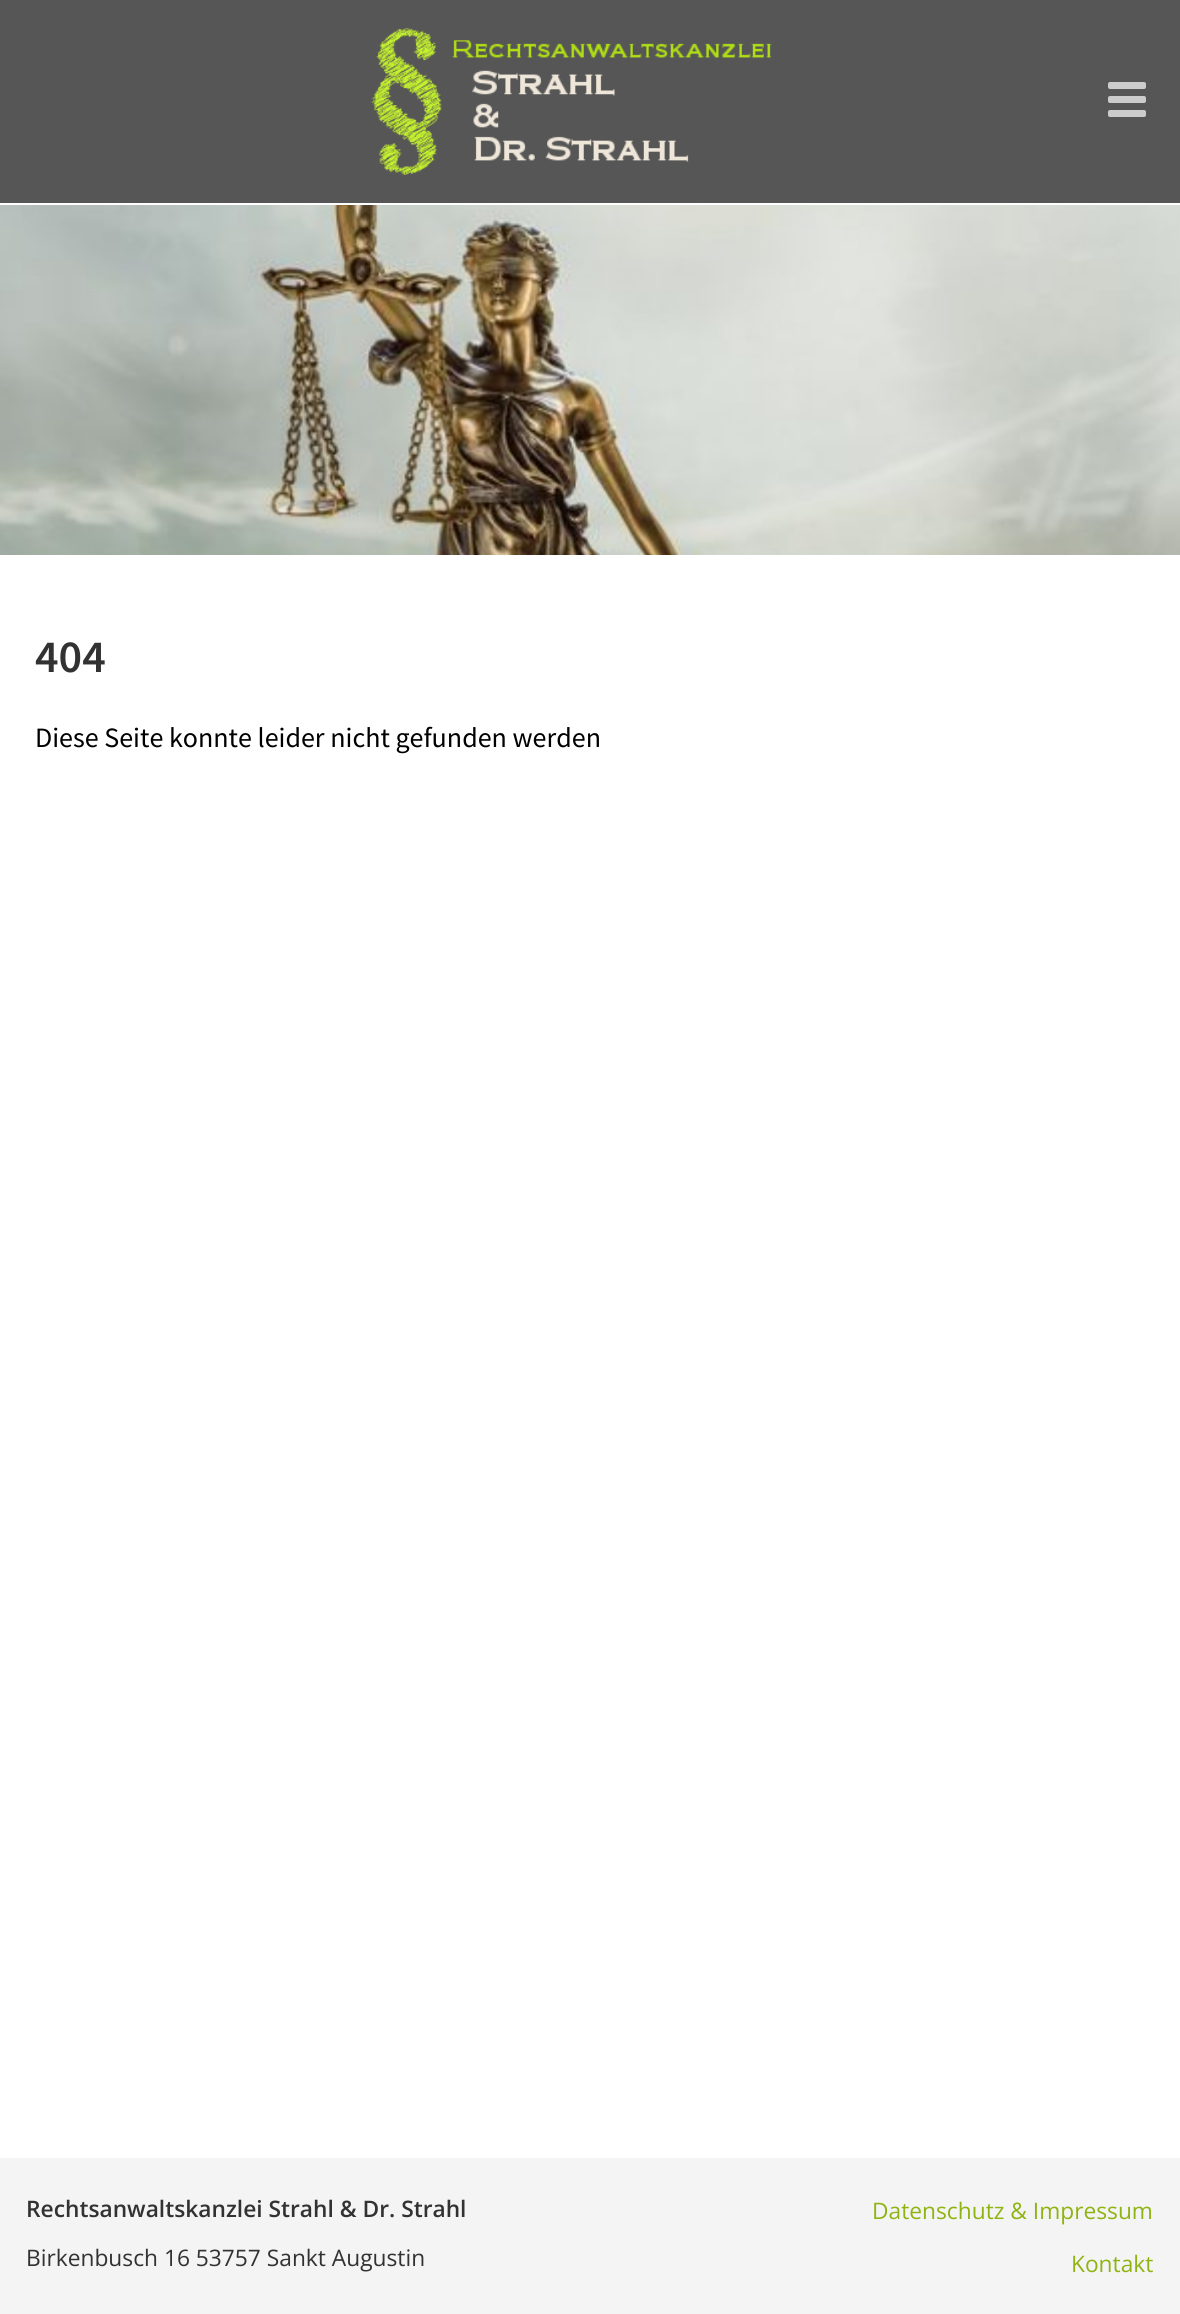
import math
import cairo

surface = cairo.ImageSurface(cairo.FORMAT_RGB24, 1180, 2314)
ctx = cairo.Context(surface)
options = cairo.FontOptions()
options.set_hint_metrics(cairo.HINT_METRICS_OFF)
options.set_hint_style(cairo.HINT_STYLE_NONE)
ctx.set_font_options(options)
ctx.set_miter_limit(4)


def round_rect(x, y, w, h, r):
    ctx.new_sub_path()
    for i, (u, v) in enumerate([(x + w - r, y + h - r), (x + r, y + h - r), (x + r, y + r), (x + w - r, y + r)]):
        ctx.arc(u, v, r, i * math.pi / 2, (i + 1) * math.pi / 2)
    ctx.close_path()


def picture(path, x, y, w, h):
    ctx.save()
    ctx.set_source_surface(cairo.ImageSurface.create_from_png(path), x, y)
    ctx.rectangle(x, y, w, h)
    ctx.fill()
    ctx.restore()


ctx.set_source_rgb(1, 1, 1)
ctx.paint()
ctx.set_source_rgb(0.337, 0.337, 0.337)
ctx.rectangle(0, 0, 1180, 203)
ctx.fill()
picture("img1.png", 371, 28, 401, 147)
ctx.set_source_rgb(0.8, 0.8, 0.8)
round_rect(1108, 82, 38, 7, 2)
ctx.fill()
round_rect(1108, 96, 38, 7, 2)
ctx.fill()
round_rect(1108, 110, 38, 7, 2)
ctx.fill()
picture("img2.png", 0, 205, 1180, 350)
ctx.select_font_face("Source Sans Pro SemiBold")
ctx.set_font_size(46)
ctx.set_source_rgb(0.196, 0.196, 0.196)
ctx.move_to(35, 672)
ctx.show_text("404")
ctx.select_font_face("Source Sans Pro")
ctx.set_font_size(28)
ctx.set_source_rgb(0, 0, 0)
ctx.move_to(35, 747)
ctx.show_text("Diese Seite konnte leider nicht gefunden werden")
ctx.set_source_rgb(0.957, 0.957, 0.957)
ctx.rectangle(0, 2158, 1180, 156)
ctx.fill()
ctx.select_font_face("Open Sans SemiBold")
ctx.set_font_size(22.75)
ctx.set_source_rgb(0.196, 0.196, 0.196)
ctx.move_to(26, 2217)
ctx.show_text("Rechtsanwaltskanzlei Strahl & Dr. Strahl")
ctx.select_font_face("Open Sans")
ctx.move_to(26, 2266)
ctx.show_text("Birkenbusch 16 53757 Sankt Augustin")
ctx.set_source_rgb(0.561, 0.706, 0.071)
ctx.move_to(872, 2219)
ctx.show_text("Datenschutz & Impressum")
ctx.move_to(1071, 2272)
ctx.show_text("Kontakt")
surface.write_to_png("page.png")
